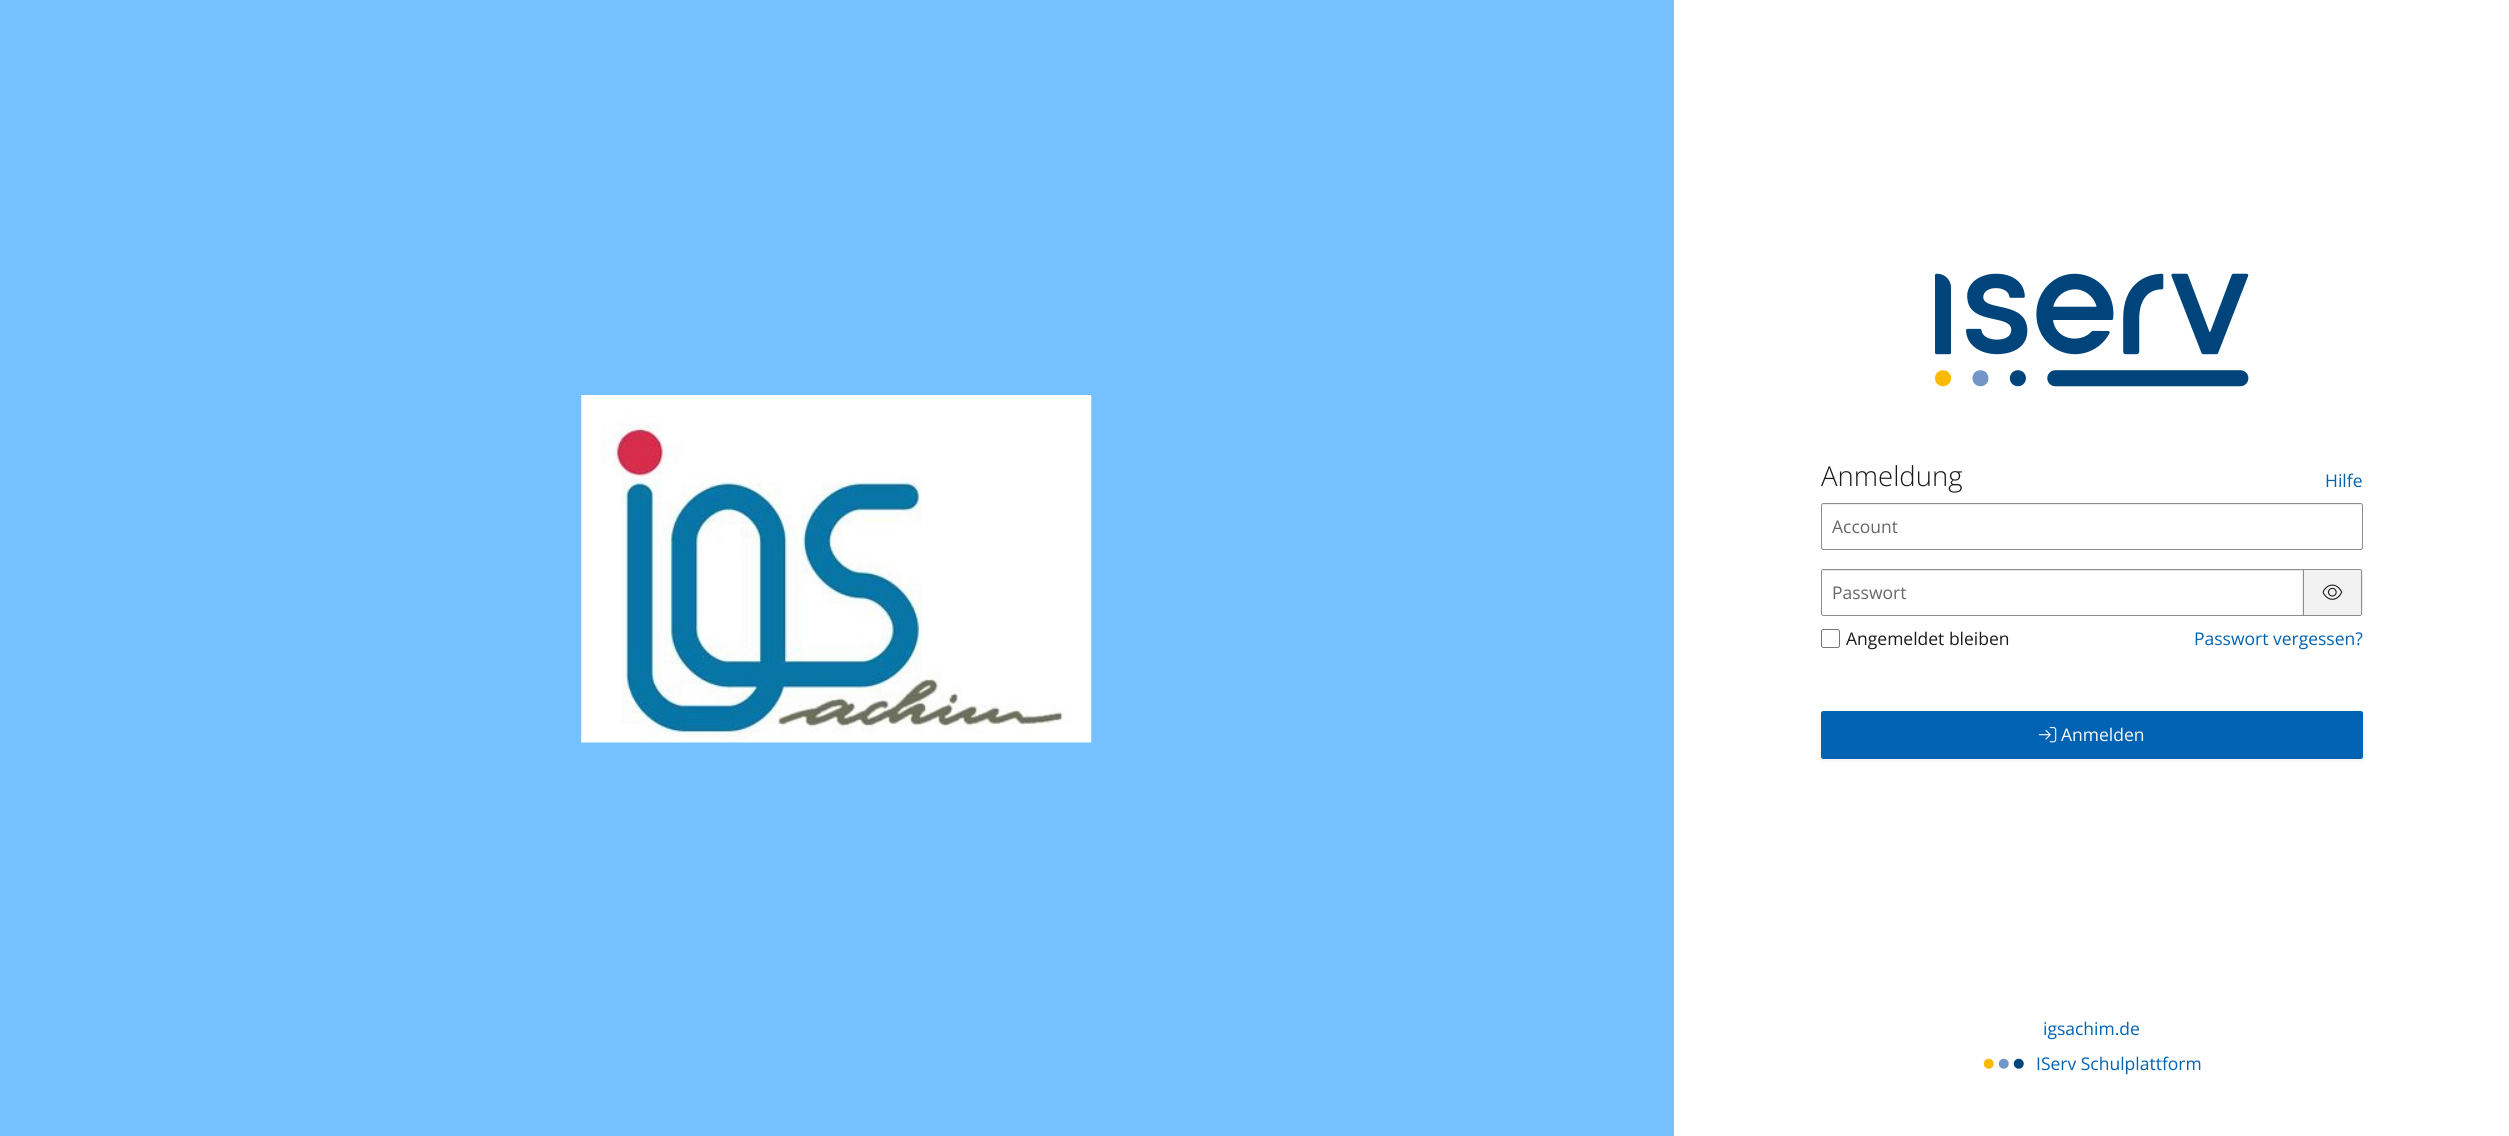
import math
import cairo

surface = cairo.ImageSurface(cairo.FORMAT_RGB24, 2509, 1136)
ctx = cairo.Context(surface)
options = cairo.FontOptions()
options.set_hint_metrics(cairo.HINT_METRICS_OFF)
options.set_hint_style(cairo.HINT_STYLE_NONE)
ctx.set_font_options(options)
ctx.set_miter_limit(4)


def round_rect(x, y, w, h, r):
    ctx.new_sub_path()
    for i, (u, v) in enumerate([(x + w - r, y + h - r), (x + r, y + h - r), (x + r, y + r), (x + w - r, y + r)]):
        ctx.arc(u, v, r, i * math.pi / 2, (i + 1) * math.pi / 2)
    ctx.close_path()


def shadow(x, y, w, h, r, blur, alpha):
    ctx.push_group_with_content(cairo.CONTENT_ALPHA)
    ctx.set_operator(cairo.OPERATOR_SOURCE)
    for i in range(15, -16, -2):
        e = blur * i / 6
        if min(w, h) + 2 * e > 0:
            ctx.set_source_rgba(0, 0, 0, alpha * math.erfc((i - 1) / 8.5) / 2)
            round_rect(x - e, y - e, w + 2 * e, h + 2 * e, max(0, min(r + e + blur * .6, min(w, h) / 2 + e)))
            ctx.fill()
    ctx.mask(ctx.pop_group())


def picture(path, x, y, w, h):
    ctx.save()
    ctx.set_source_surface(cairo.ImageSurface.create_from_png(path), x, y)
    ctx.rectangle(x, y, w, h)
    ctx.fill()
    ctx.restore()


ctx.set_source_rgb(1, 1, 1)
ctx.paint()
ctx.set_source_rgb(0.459, 0.757, 1)
ctx.rectangle(0, 0, 1674, 1136)
ctx.fill()
picture("img1.png", 581, 395, 511, 348)
picture("img2.png", 1935, 273, 314, 114)
ctx.select_font_face("Open Sans Light")
ctx.set_font_size(27.5)
ctx.set_source_rgb(0.102, 0.102, 0.102)
ctx.move_to(1821, 486)
ctx.show_text("Anmeldung")
ctx.select_font_face("Open Sans")
ctx.set_font_size(17.5)
ctx.set_source_rgb(0, 0.384, 0.702)
ctx.move_to(2325, 487)
ctx.show_text("Hilfe")
ctx.set_source_rgb(0.925, 0.925, 0.925)
ctx.new_path()
ctx.move_to(1824, 505)
ctx.line_to(2360, 505)
ctx.line_to(2361, 506)
ctx.line_to(2361, 505)
ctx.line_to(2360, 504)
ctx.line_to(1824, 504)
ctx.curve_to(1823, 504, 1823, 505, 1823, 505)
ctx.close_path()
ctx.fill()
round_rect(1821.5, 503.5, 541, 46, 2)
ctx.set_source_rgb(0.549, 0.549, 0.549)
ctx.set_line_width(1)
ctx.stroke()
ctx.set_source_rgb(0.4, 0.4, 0.4)
ctx.move_to(1832, 533)
ctx.show_text("Account")
ctx.set_source_rgb(0.925, 0.925, 0.925)
ctx.new_path()
ctx.move_to(1824, 571)
ctx.line_to(2302, 571)
ctx.line_to(2302, 615)
ctx.line_to(2303, 615)
ctx.line_to(2303, 570)
ctx.line_to(1824, 570)
ctx.line_to(1823, 571)
ctx.line_to(1823, 572)
ctx.close_path()
ctx.fill()
ctx.new_path()
ctx.move_to(1823.5, 569.5)
ctx.line_to(2303.5, 569.5)
ctx.line_to(2303.5, 615.5)
ctx.line_to(1823.5, 615.5)
ctx.curve_to(1822.5, 615.5, 1821.5, 614.5, 1821.5, 613.5)
ctx.line_to(1821.5, 571.5)
ctx.curve_to(1821.5, 570.5, 1822.5, 569.5, 1823.5, 569.5)
ctx.close_path()
ctx.set_source_rgb(0.549, 0.549, 0.549)
ctx.stroke()
ctx.set_source_rgb(0.4, 0.4, 0.4)
ctx.move_to(1832, 599)
ctx.show_text("Passwort")
ctx.set_source_rgb(0.949, 0.949, 0.949)
ctx.new_path()
ctx.move_to(2304, 569)
ctx.line_to(2360.5, 569)
ctx.curve_to(2362, 569, 2363, 570, 2363, 571.5)
ctx.line_to(2363, 613.5)
ctx.curve_to(2363, 615, 2362, 616, 2360.5, 616)
ctx.line_to(2304, 616)
ctx.close_path()
ctx.fill()
ctx.set_source_rgb(0.549, 0.549, 0.549)
ctx.rectangle(2304, 569, 57, 1)
ctx.fill()
ctx.rectangle(2361, 570, 1, 45)
ctx.fill()
ctx.rectangle(2304, 615, 57, 1)
ctx.fill()
picture("img3.png", 2322, 584, 21, 16)
round_rect(1821.5, 629.5, 18, 18, 2)
ctx.set_source_rgb(0.463, 0.463, 0.463)
ctx.stroke()
ctx.set_source_rgb(0.102, 0.102, 0.102)
ctx.move_to(1846, 645)
ctx.show_text("Angemeldet bleiben")
ctx.set_source_rgb(0, 0.384, 0.702)
ctx.move_to(2194, 645)
ctx.show_text("Passwort vergessen?")
ctx.set_source_rgb(0, 0, 0)
shadow(1821, 713, 542, 47, 2.5, 2, 0.08)
ctx.set_source_rgb(0, 0.384, 0.702)
round_rect(1821.5, 711.5, 541, 47, 2)
ctx.fill_preserve()
ctx.stroke()
picture("img4.png", 2038, 727, 19, 16)
ctx.set_source_rgb(1, 1, 1)
ctx.move_to(2061, 741)
ctx.show_text("Anmelden")
ctx.set_source_rgb(0, 0.384, 0.702)
ctx.move_to(2043, 1035)
ctx.show_text("igsachim.de")
picture("img5.png", 1983, 1058, 11, 11)
picture("img6.png", 1998, 1058, 11, 11)
picture("img7.png", 2013, 1058, 11, 11)
ctx.move_to(2036, 1070)
ctx.show_text("IServ Schulplattform")
surface.write_to_png("page.png")
